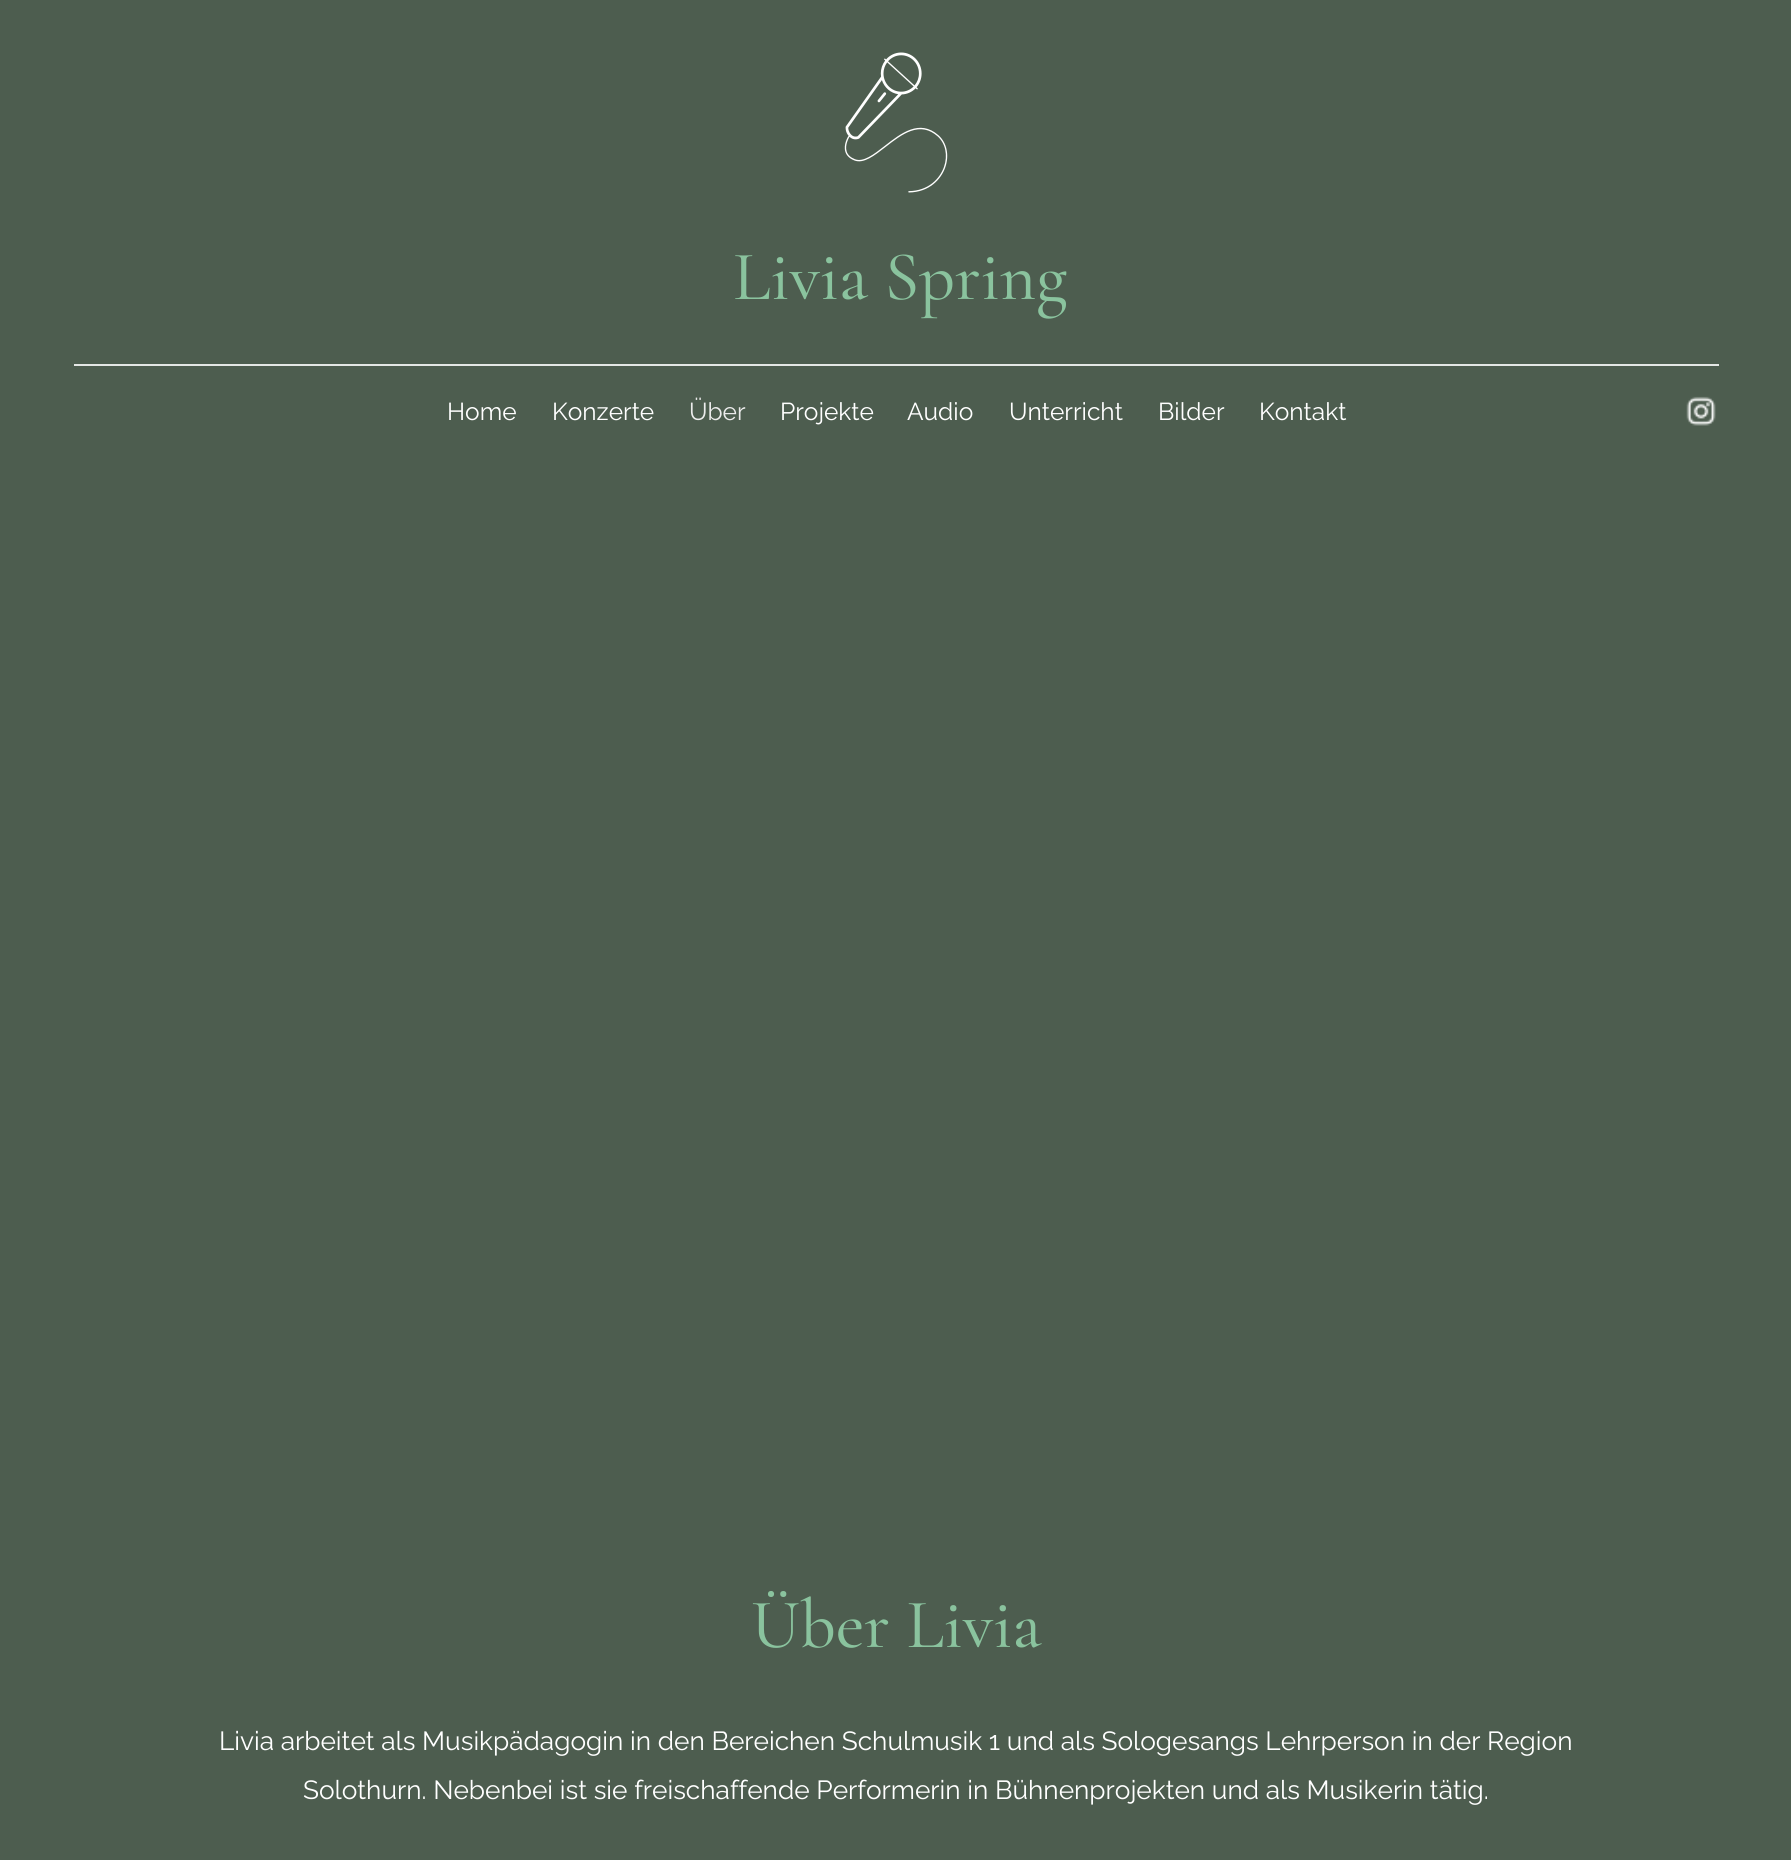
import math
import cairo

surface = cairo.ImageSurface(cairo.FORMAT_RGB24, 1791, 1860)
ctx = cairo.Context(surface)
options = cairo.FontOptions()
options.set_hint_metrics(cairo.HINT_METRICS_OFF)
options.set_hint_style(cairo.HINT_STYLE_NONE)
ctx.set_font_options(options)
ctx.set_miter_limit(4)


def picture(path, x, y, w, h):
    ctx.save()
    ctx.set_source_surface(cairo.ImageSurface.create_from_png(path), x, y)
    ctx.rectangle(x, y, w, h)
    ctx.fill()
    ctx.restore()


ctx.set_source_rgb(0.302, 0.365, 0.31)
ctx.paint()
picture("img1.png", 844, 52, 104, 141)
ctx.select_font_face("Cormorant Garamond Medium")
ctx.set_font_size(70)
ctx.set_source_rgb(0.541, 0.765, 0.62)
ctx.move_to(733, 299)
ctx.show_text("Livia Spring")
ctx.set_source_rgb(0.894, 0.906, 0.898)
ctx.rectangle(74, 364, 1645, 2)
ctx.fill()
ctx.select_font_face("Raleway")
ctx.set_font_size(24.5)
ctx.set_source_rgb(1, 1, 1)
ctx.move_to(447, 420)
ctx.show_text("Home")
ctx.move_to(552, 420)
ctx.show_text("Konzerte")
ctx.set_source_rgb(0.922, 0.922, 0.922)
ctx.move_to(689, 420)
ctx.show_text("Über")
ctx.set_source_rgb(1, 1, 1)
ctx.move_to(780, 420)
ctx.show_text("Projekte")
ctx.move_to(907, 420)
ctx.show_text("Audio")
ctx.move_to(1009, 420)
ctx.show_text("Unterricht")
ctx.move_to(1158, 420)
ctx.show_text("Bilder")
ctx.move_to(1259, 420)
ctx.show_text("Kontakt")
picture("img2.png", 1686, 396, 30, 30)
ctx.select_font_face("Cormorant Garamond Medium")
ctx.set_font_size(70)
ctx.set_source_rgb(0.541, 0.765, 0.62)
ctx.move_to(751, 1647)
ctx.show_text("Über Livia")
ctx.select_font_face("Raleway")
ctx.set_font_size(26.25)
ctx.set_source_rgb(1, 1, 1)
ctx.move_to(219, 1750)
ctx.show_text("Livia arbeitet als Musikpädagogin in den Bereichen Schulmusik 1 und als Sologesangs Lehrperson in der Region")
ctx.move_to(303, 1799)
ctx.show_text("Solothurn. Nebenbei ist sie freischaffende Performerin in Bühnenprojekten und als Musikerin tätig.")
surface.write_to_png("page.png")
